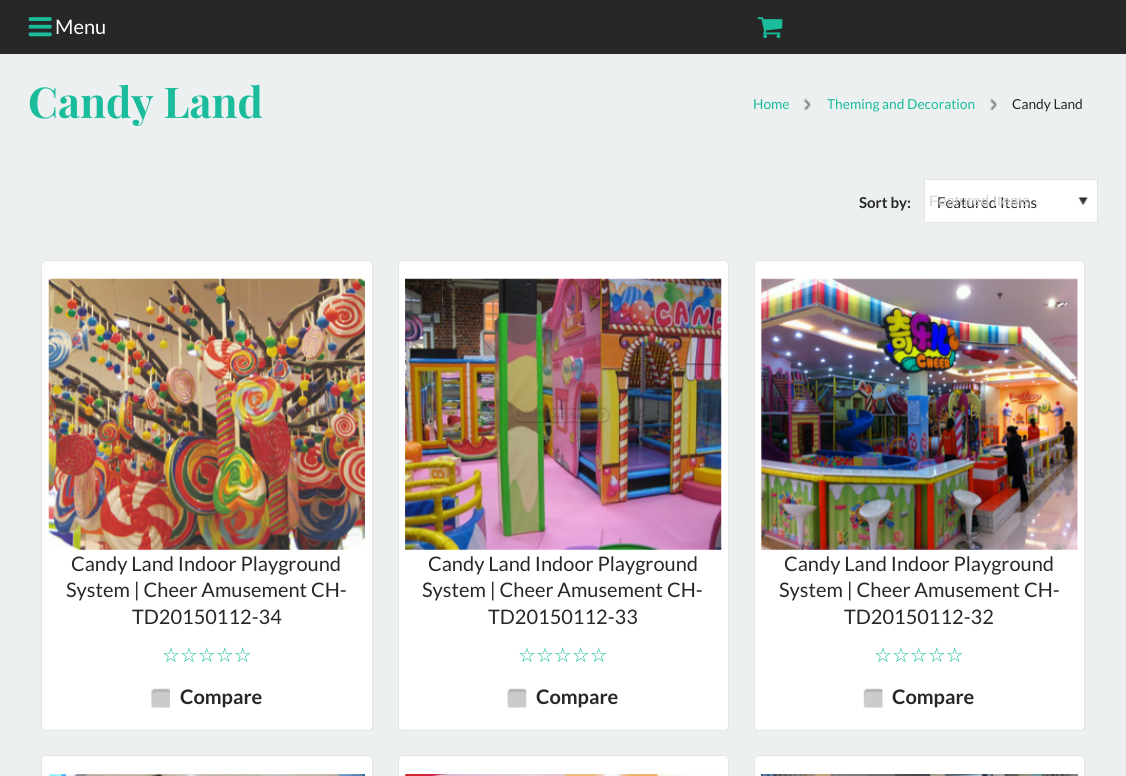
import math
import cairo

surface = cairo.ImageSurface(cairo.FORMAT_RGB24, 1126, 776)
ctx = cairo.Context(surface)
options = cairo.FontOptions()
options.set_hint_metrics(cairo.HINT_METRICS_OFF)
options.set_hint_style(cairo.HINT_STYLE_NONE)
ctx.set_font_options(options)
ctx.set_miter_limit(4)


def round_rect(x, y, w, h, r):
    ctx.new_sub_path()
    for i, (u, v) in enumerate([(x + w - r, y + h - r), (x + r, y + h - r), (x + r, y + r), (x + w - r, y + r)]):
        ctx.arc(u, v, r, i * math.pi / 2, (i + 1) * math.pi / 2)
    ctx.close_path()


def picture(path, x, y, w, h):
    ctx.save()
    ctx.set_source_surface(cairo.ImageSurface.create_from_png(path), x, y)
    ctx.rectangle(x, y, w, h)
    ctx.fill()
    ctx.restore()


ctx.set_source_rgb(0.925, 0.941, 0.945)
ctx.paint()
ctx.set_source_rgb(0.153, 0.153, 0.153)
ctx.rectangle(0, 0, 1126, 54)
ctx.fill()
picture("img1.png", 28, 17, 24, 20)
ctx.select_font_face("Lato")
ctx.set_font_size(20)
ctx.set_source_rgb(1, 1, 1)
ctx.move_to(55, 34)
ctx.show_text("Menu")
picture("img2.png", 757, 17, 26, 22)
ctx.select_font_face("Playfair Display", cairo.FONT_SLANT_NORMAL, cairo.FONT_WEIGHT_BOLD)
ctx.set_font_size(42.5)
ctx.set_source_rgb(0.102, 0.737, 0.612)
ctx.move_to(28, 118)
ctx.show_text("Candy Land")
picture("img3.png", 803, 98, 8, 13)
ctx.select_font_face("Lato")
ctx.set_font_size(13.75)
ctx.move_to(753, 109)
ctx.show_text("Home")
picture("img4.png", 989, 98, 8, 13)
ctx.move_to(827, 109)
ctx.show_text("Theming and Decoration")
ctx.set_source_rgb(0.153, 0.153, 0.153)
ctx.move_to(1012, 109)
ctx.show_text("Candy Land")
ctx.select_font_face("Lato", cairo.FONT_SLANT_NORMAL, cairo.FONT_WEIGHT_BOLD)
ctx.set_font_size(15)
ctx.move_to(859, 208)
ctx.show_text("Sort by:")
ctx.set_source_rgb(1, 1, 1)
ctx.rectangle(925, 180, 172, 42)
ctx.fill()
picture("img5.png", 1078, 197, 10, 9)
ctx.rectangle(924.5, 179.5, 173, 43)
ctx.set_source_rgb(0.894, 0.894, 0.894)
ctx.set_line_width(1)
ctx.stroke()
ctx.select_font_face("Lato")
ctx.set_source_rgb(0.153, 0.153, 0.153)
ctx.move_to(937, 208)
ctx.show_text("Featured Items")
ctx.select_font_face("Liberation Sans")
ctx.set_source_rgb(0.824, 0.824, 0.824)
ctx.move_to(929, 206)
ctx.show_text("Featured Items")
ctx.set_source_rgb(1, 1, 1)
round_rect(41.5, 260.5, 331, 470, 4.5)
ctx.fill_preserve()
ctx.set_source_rgb(0.894, 0.894, 0.894)
ctx.stroke()
picture("img6.png", 48, 278, 317, 272)
ctx.select_font_face("Lato")
ctx.set_font_size(20)
ctx.set_source_rgb(0.153, 0.153, 0.153)
ctx.move_to(71, 571)
ctx.show_text("Candy Land Indoor Playground")
ctx.move_to(66, 597)
ctx.show_text("System | Cheer Amusement CH-")
ctx.move_to(132, 624)
ctx.show_text("TD20150112-34")
ctx.select_font_face("DejaVu Sans")
ctx.set_source_rgb(0.102, 0.737, 0.612)
ctx.move_to(162, 662)
ctx.show_text("☆☆☆☆☆")
picture("img7.png", 151, 688, 19, 20)
ctx.select_font_face("Lato", cairo.FONT_SLANT_NORMAL, cairo.FONT_WEIGHT_BOLD)
ctx.set_source_rgb(0.153, 0.153, 0.153)
ctx.move_to(180, 704)
ctx.show_text("Compare")
ctx.set_source_rgb(1, 1, 1)
round_rect(398.5, 260.5, 330, 470, 4.5)
ctx.fill_preserve()
ctx.set_source_rgb(0.894, 0.894, 0.894)
ctx.stroke()
picture("img8.png", 405, 278, 317, 272)
ctx.select_font_face("Lato")
ctx.set_source_rgb(0.153, 0.153, 0.153)
ctx.move_to(428, 571)
ctx.show_text("Candy Land Indoor Playground")
ctx.move_to(422, 597)
ctx.show_text("System | Cheer Amusement CH-")
ctx.move_to(488, 624)
ctx.show_text("TD20150112-33")
ctx.select_font_face("DejaVu Sans")
ctx.set_source_rgb(0.102, 0.737, 0.612)
ctx.move_to(518, 662)
ctx.show_text("☆☆☆☆☆")
picture("img9.png", 507, 688, 20, 20)
ctx.select_font_face("Lato", cairo.FONT_SLANT_NORMAL, cairo.FONT_WEIGHT_BOLD)
ctx.set_source_rgb(0.153, 0.153, 0.153)
ctx.move_to(536, 704)
ctx.show_text("Compare")
ctx.set_source_rgb(1, 1, 1)
round_rect(754.5, 260.5, 330, 470, 4.5)
ctx.fill_preserve()
ctx.set_source_rgb(0.894, 0.894, 0.894)
ctx.stroke()
picture("img10.png", 761, 278, 317, 272)
ctx.select_font_face("Lato")
ctx.set_source_rgb(0.153, 0.153, 0.153)
ctx.move_to(784, 571)
ctx.show_text("Candy Land Indoor Playground")
ctx.move_to(779, 597)
ctx.show_text("System | Cheer Amusement CH-")
ctx.move_to(844, 624)
ctx.show_text("TD20150112-32")
ctx.select_font_face("DejaVu Sans")
ctx.set_source_rgb(0.102, 0.737, 0.612)
ctx.move_to(874, 662)
ctx.show_text("☆☆☆☆☆")
picture("img11.png", 863, 688, 20, 20)
ctx.select_font_face("Lato", cairo.FONT_SLANT_NORMAL, cairo.FONT_WEIGHT_BOLD)
ctx.set_source_rgb(0.153, 0.153, 0.153)
ctx.move_to(892, 704)
ctx.show_text("Compare")
ctx.set_source_rgb(1, 1, 1)
ctx.new_path()
ctx.move_to(46, 755)
ctx.line_to(368, 755)
ctx.curve_to(371, 755, 373, 757, 373, 760)
ctx.line_to(373, 776)
ctx.line_to(41, 776)
ctx.line_to(41, 760)
ctx.curve_to(41, 757, 43, 755, 46, 755)
ctx.close_path()
ctx.fill()
round_rect(41.5, 755.5, 331, 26, 4.5)
ctx.set_source_rgb(0.894, 0.894, 0.894)
ctx.stroke()
picture("img12.png", 49, 774, 316, 2)
ctx.set_source_rgb(1, 1, 1)
ctx.new_path()
ctx.move_to(403, 755)
ctx.line_to(724, 755)
ctx.curve_to(727, 755, 729, 757, 729, 760)
ctx.line_to(729, 776)
ctx.line_to(398, 776)
ctx.line_to(398, 760)
ctx.curve_to(398, 757, 400, 755, 403, 755)
ctx.close_path()
ctx.fill()
round_rect(398.5, 755.5, 330, 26, 4.5)
ctx.set_source_rgb(0.894, 0.894, 0.894)
ctx.stroke()
picture("img13.png", 405, 774, 312, 2)
ctx.set_source_rgb(1, 1, 1)
ctx.new_path()
ctx.move_to(759, 755)
ctx.line_to(1080, 755)
ctx.curve_to(1083, 755, 1085, 757, 1085, 760)
ctx.line_to(1085, 776)
ctx.line_to(754, 776)
ctx.line_to(754, 760)
ctx.curve_to(754, 757, 756, 755, 759, 755)
ctx.close_path()
ctx.fill()
round_rect(754.5, 755.5, 330, 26, 4.5)
ctx.set_source_rgb(0.894, 0.894, 0.894)
ctx.stroke()
picture("img14.png", 761, 774, 317, 2)
surface.write_to_png("page.png")
